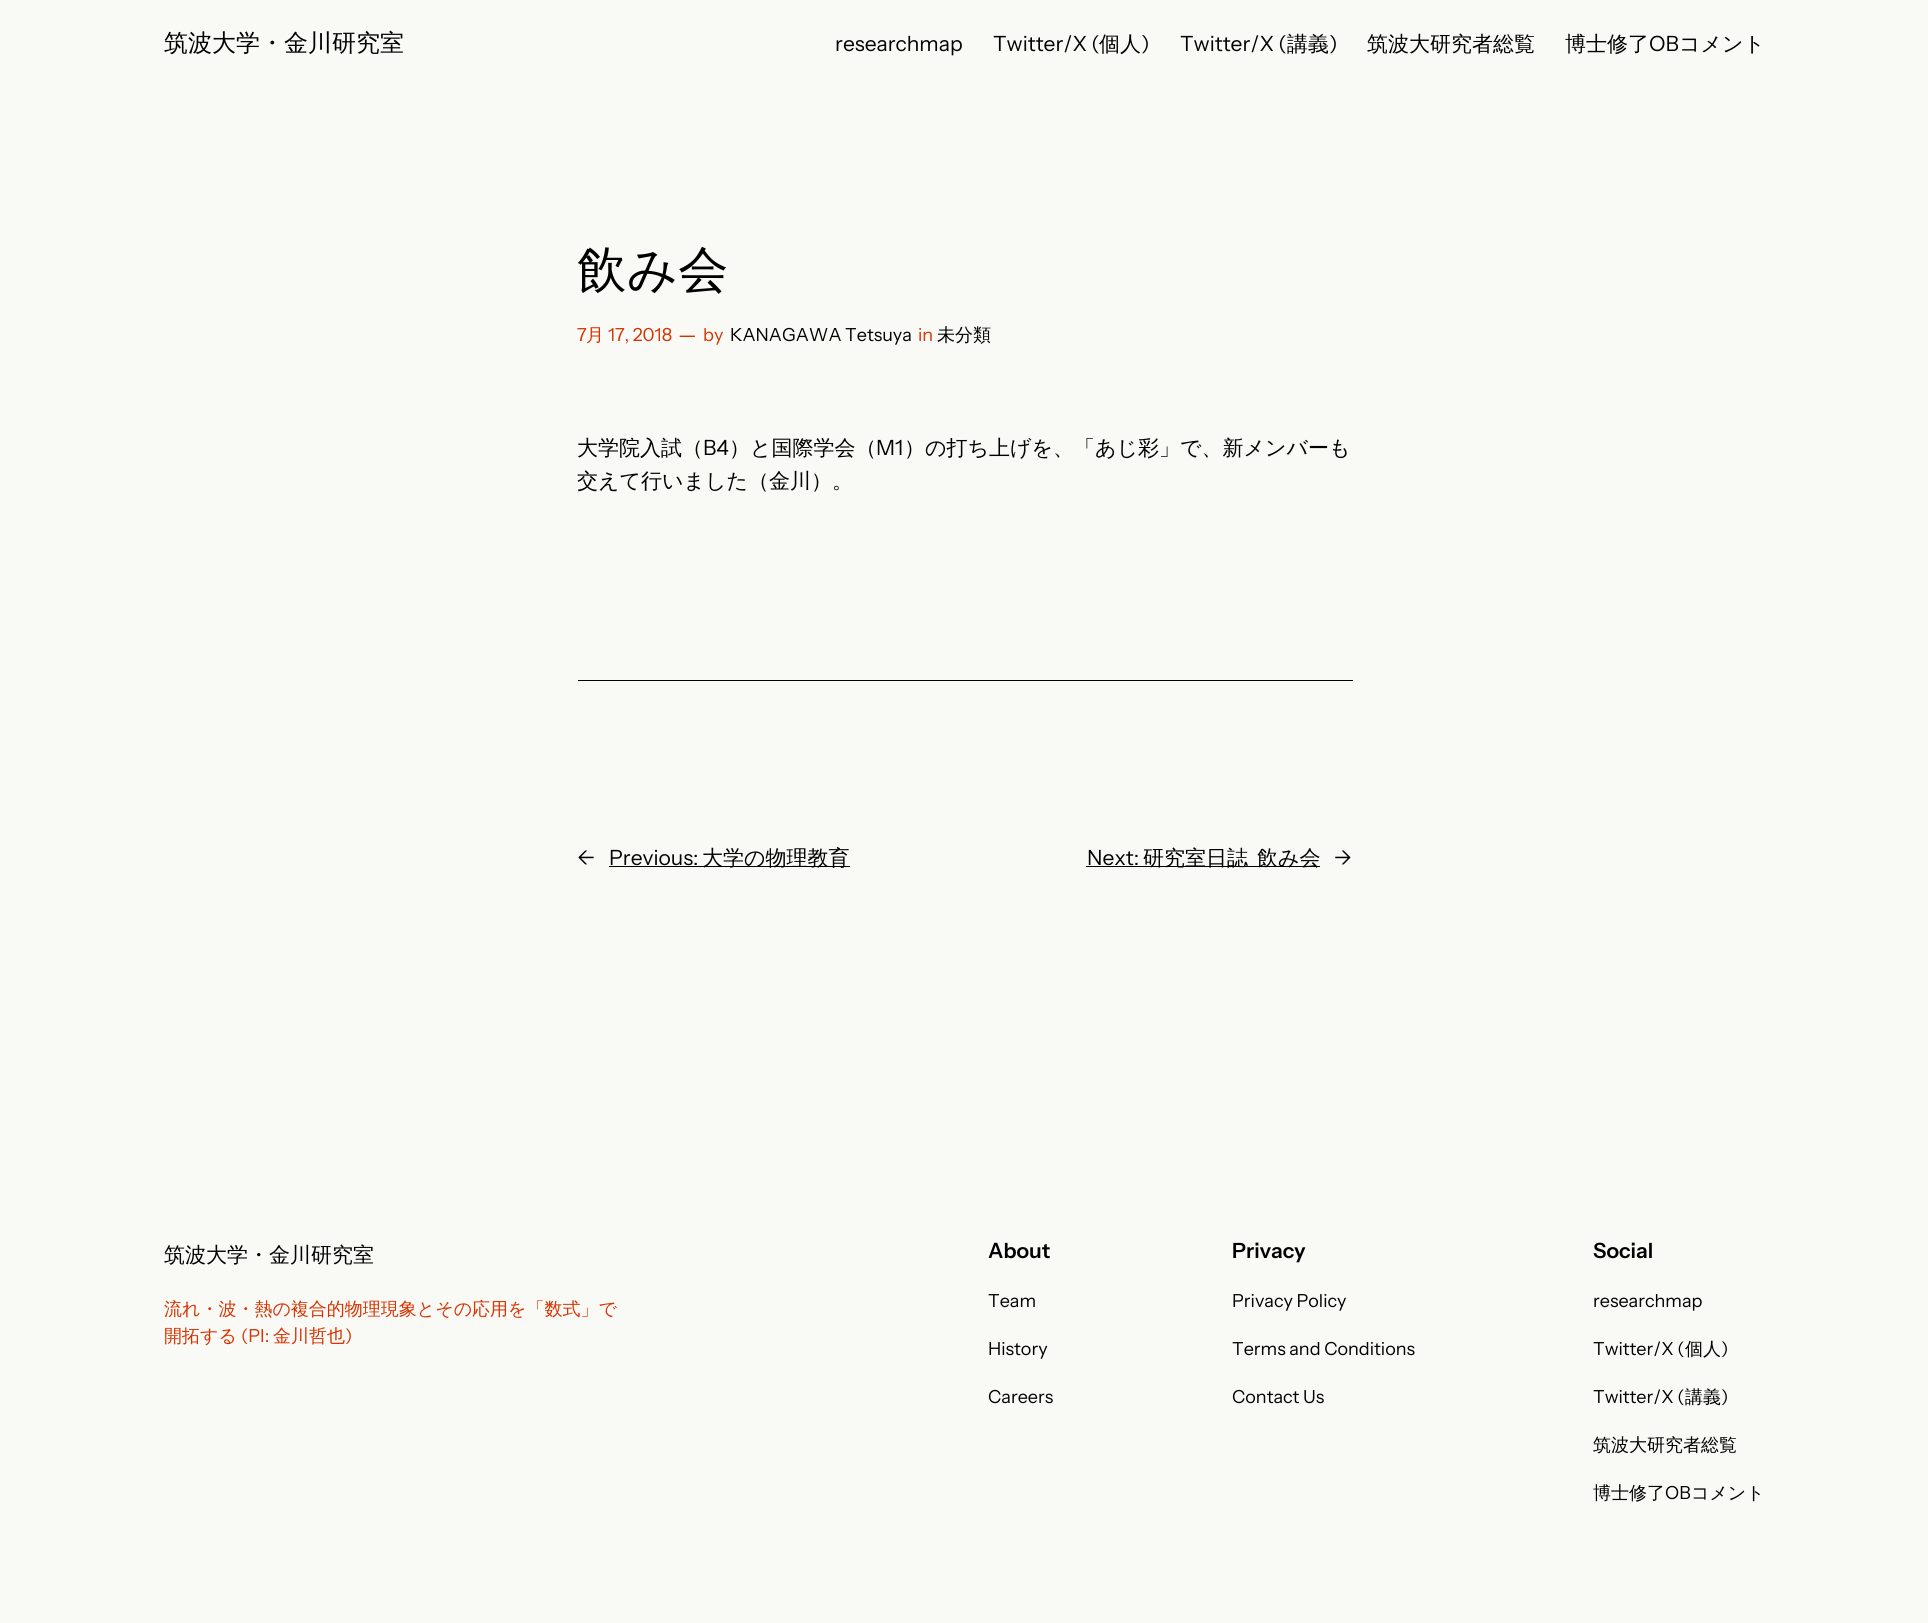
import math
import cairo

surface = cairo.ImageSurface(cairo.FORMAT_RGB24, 1928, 1623)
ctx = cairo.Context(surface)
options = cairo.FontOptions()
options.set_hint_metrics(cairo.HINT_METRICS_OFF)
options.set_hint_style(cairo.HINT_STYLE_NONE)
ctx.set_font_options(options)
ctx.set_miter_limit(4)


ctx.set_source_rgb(0.976, 0.973, 0.961)
ctx.paint()
ctx.select_font_face("WenQuanYi Zen Hei Medium")
ctx.set_font_size(24)
ctx.set_source_rgb(0, 0, 0)
ctx.move_to(164, 51)
ctx.show_text("筑波大学・金川研究室")
ctx.select_font_face("Instrument Sans")
ctx.set_font_size(21)
ctx.move_to(835, 51)
ctx.show_text("researchmap")
ctx.move_to(993, 51)
ctx.show_text("Twitter/X (")
ctx.select_font_face("WenQuanYi Zen Hei Medium")
ctx.move_to(1099, 51)
ctx.show_text("個人")
ctx.select_font_face("Instrument Sans")
ctx.move_to(1141, 51)
ctx.show_text(")")
ctx.move_to(1180, 51)
ctx.show_text("Twitter/X (")
ctx.select_font_face("WenQuanYi Zen Hei Medium")
ctx.move_to(1287, 51)
ctx.show_text("講義")
ctx.select_font_face("Instrument Sans")
ctx.move_to(1329, 51)
ctx.show_text(")")
ctx.select_font_face("WenQuanYi Zen Hei Medium")
ctx.move_to(1367, 51)
ctx.show_text("筑波大研究者総覧")
ctx.move_to(1565, 51)
ctx.show_text("博士修了")
ctx.select_font_face("Instrument Sans")
ctx.move_to(1649, 51)
ctx.show_text("OB")
ctx.select_font_face("WenQuanYi Zen Hei Medium")
ctx.move_to(1679, 51)
ctx.show_text("コメント")
ctx.set_font_size(50)
ctx.move_to(577, 287)
ctx.show_text("飲み会")
ctx.select_font_face("Instrument Sans")
ctx.set_font_size(18)
ctx.set_source_rgb(0.843, 0.2, 0.004)
ctx.move_to(577, 341)
ctx.show_text("7")
ctx.select_font_face("WenQuanYi Zen Hei Medium")
ctx.move_to(586, 341)
ctx.show_text("月")
ctx.select_font_face("Instrument Sans")
ctx.move_to(608, 341)
ctx.show_text("17, 2018")
ctx.set_font_size(21)
ctx.move_to(678, 342)
ctx.show_text("—")
ctx.set_font_size(18)
ctx.move_to(703, 341)
ctx.show_text("by")
ctx.set_source_rgb(0, 0, 0)
ctx.move_to(730, 341)
ctx.show_text("KANAGAWA Tetsuya")
ctx.set_source_rgb(0.843, 0.2, 0.004)
ctx.move_to(918, 341)
ctx.show_text("in")
ctx.select_font_face("WenQuanYi Zen Hei Medium")
ctx.set_source_rgb(0, 0, 0)
ctx.move_to(937, 341)
ctx.show_text("未分類")
ctx.set_font_size(21)
ctx.move_to(577, 455)
ctx.show_text("大学院入試（")
ctx.select_font_face("Instrument Sans")
ctx.move_to(703, 455)
ctx.show_text("B4")
ctx.select_font_face("WenQuanYi Zen Hei Medium")
ctx.move_to(729, 455)
ctx.show_text("）と国際学会（")
ctx.select_font_face("Instrument Sans")
ctx.move_to(876, 455)
ctx.show_text("M1")
ctx.select_font_face("WenQuanYi Zen Hei Medium")
ctx.move_to(904, 455)
ctx.show_text("）の打ち上げを、「あじ彩」で、新メンバーも")
ctx.move_to(577, 488)
ctx.show_text("交えて行いました（金川）。")
ctx.rectangle(578, 680, 775, 1)
ctx.fill()
ctx.select_font_face("Instrument Sans")
ctx.move_to(577, 865)
ctx.show_text("←")
ctx.move_to(609, 865)
ctx.show_text("Previous:")
ctx.rectangle(609, 866, 241, 1)
ctx.fill()
ctx.select_font_face("WenQuanYi Zen Hei Medium")
ctx.move_to(702, 865)
ctx.show_text("大学の物理教育")
ctx.select_font_face("Instrument Sans")
ctx.move_to(1087, 865)
ctx.show_text("Next:")
ctx.rectangle(1086, 866, 234, 1)
ctx.fill()
ctx.select_font_face("WenQuanYi Zen Hei Medium")
ctx.move_to(1143, 865)
ctx.show_text("研究室日誌")
ctx.move_to(1257, 865)
ctx.show_text("飲み会")
ctx.select_font_face("Instrument Sans")
ctx.move_to(1334, 865)
ctx.show_text("→")
ctx.select_font_face("WenQuanYi Zen Hei Medium")
ctx.move_to(164, 1262)
ctx.show_text("筑波大学・金川研究室")
ctx.set_font_size(18)
ctx.set_source_rgb(0.843, 0.2, 0.004)
ctx.move_to(164, 1315)
ctx.show_text("流れ・波・熱の複合的物理現象とその応用を「数式」で")
ctx.move_to(164, 1342)
ctx.show_text("開拓する")
ctx.select_font_face("Instrument Sans")
ctx.move_to(241, 1342)
ctx.show_text("(PI:")
ctx.select_font_face("WenQuanYi Zen Hei Medium")
ctx.move_to(273, 1342)
ctx.show_text("金川哲也")
ctx.select_font_face("Instrument Sans")
ctx.move_to(345, 1342)
ctx.show_text(")")
ctx.select_font_face("Instrument Sans SemiBold")
ctx.set_font_size(21)
ctx.set_source_rgb(0, 0, 0)
ctx.move_to(988, 1258)
ctx.show_text("About")
ctx.select_font_face("Instrument Sans")
ctx.set_font_size(18)
ctx.move_to(988, 1307)
ctx.show_text("Team")
ctx.move_to(988, 1355)
ctx.show_text("History")
ctx.move_to(988, 1403)
ctx.show_text("Careers")
ctx.select_font_face("Instrument Sans SemiBold")
ctx.set_font_size(21)
ctx.move_to(1232, 1258)
ctx.show_text("Privacy")
ctx.select_font_face("Instrument Sans")
ctx.set_font_size(18)
ctx.move_to(1232, 1307)
ctx.show_text("Privacy Policy")
ctx.move_to(1232, 1355)
ctx.show_text("Terms and Conditions")
ctx.move_to(1232, 1403)
ctx.show_text("Contact Us")
ctx.select_font_face("Instrument Sans SemiBold")
ctx.set_font_size(21)
ctx.move_to(1593, 1258)
ctx.show_text("Social")
ctx.select_font_face("Instrument Sans")
ctx.set_font_size(18)
ctx.move_to(1593, 1307)
ctx.show_text("researchmap")
ctx.move_to(1593, 1355)
ctx.show_text("Twitter/X (")
ctx.select_font_face("WenQuanYi Zen Hei Medium")
ctx.move_to(1685, 1355)
ctx.show_text("個人")
ctx.select_font_face("Instrument Sans")
ctx.move_to(1721, 1355)
ctx.show_text(")")
ctx.move_to(1593, 1403)
ctx.show_text("Twitter/X (")
ctx.select_font_face("WenQuanYi Zen Hei Medium")
ctx.move_to(1685, 1403)
ctx.show_text("講義")
ctx.select_font_face("Instrument Sans")
ctx.move_to(1721, 1403)
ctx.show_text(")")
ctx.select_font_face("WenQuanYi Zen Hei Medium")
ctx.move_to(1593, 1451)
ctx.show_text("筑波大研究者総覧")
ctx.move_to(1593, 1499)
ctx.show_text("博士修了")
ctx.select_font_face("Instrument Sans")
ctx.move_to(1665, 1499)
ctx.show_text("OB")
ctx.select_font_face("WenQuanYi Zen Hei Medium")
ctx.move_to(1691, 1499)
ctx.show_text("コメント")
surface.write_to_png("page.png")
